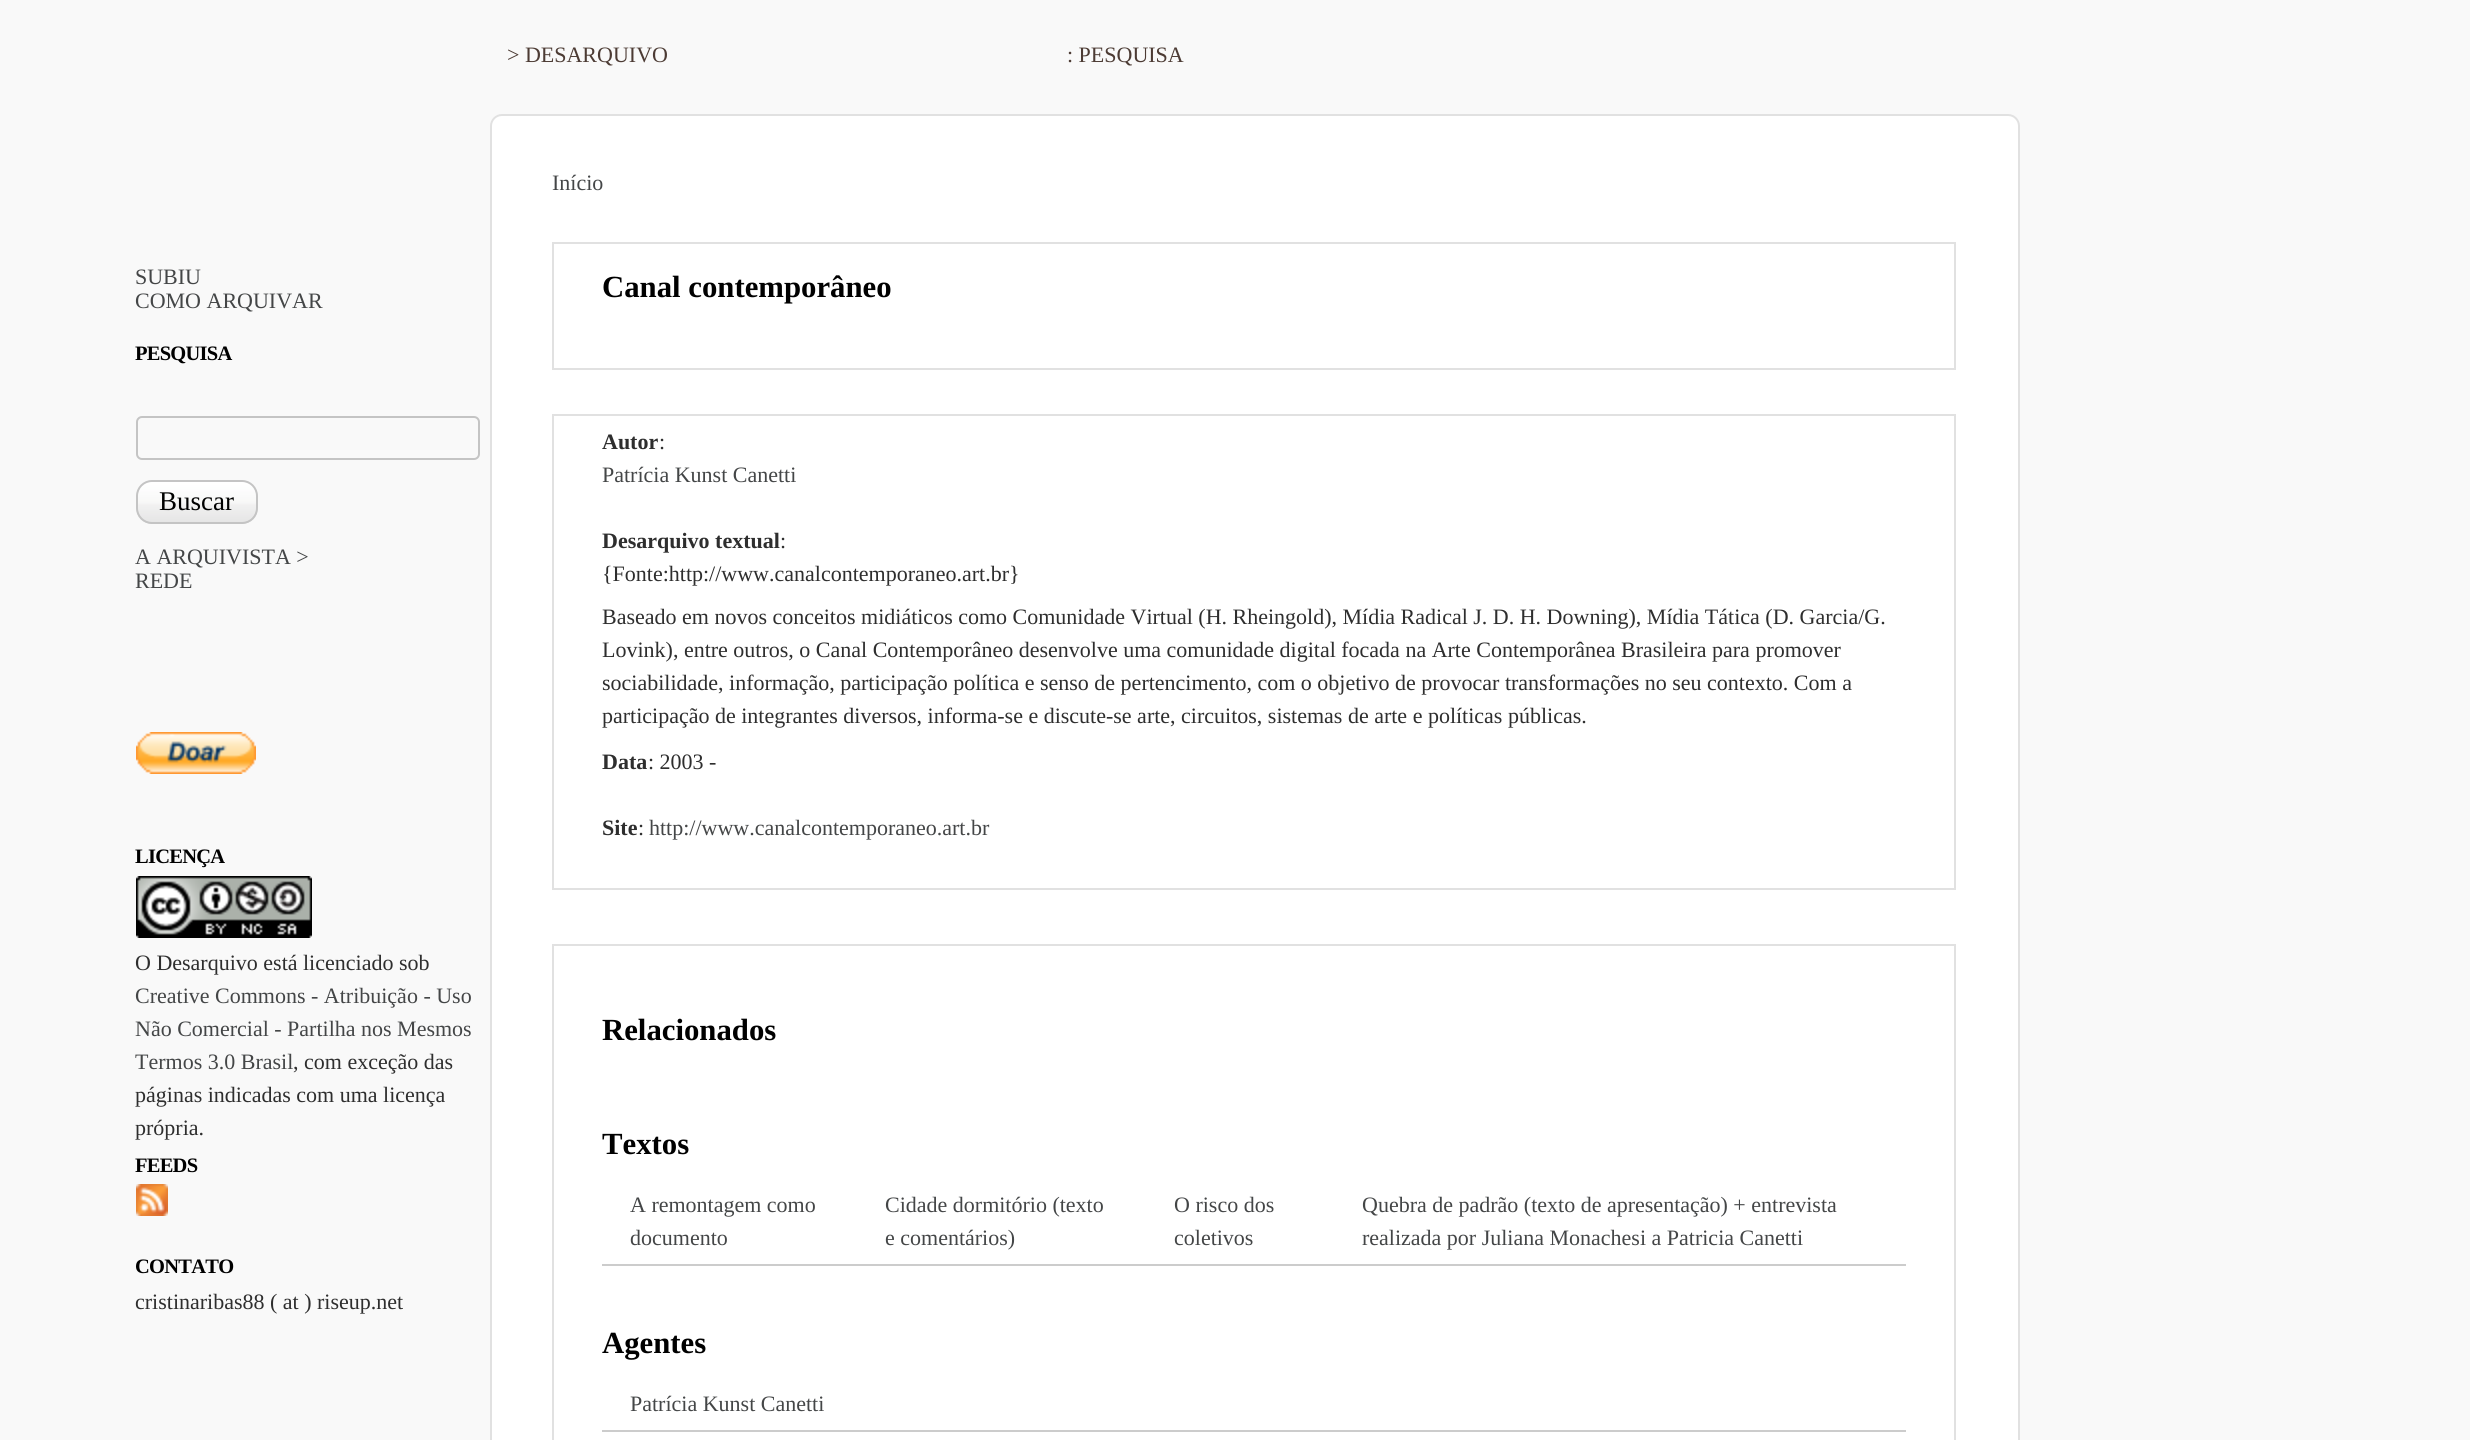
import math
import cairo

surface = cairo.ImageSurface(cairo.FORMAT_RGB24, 2470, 1440)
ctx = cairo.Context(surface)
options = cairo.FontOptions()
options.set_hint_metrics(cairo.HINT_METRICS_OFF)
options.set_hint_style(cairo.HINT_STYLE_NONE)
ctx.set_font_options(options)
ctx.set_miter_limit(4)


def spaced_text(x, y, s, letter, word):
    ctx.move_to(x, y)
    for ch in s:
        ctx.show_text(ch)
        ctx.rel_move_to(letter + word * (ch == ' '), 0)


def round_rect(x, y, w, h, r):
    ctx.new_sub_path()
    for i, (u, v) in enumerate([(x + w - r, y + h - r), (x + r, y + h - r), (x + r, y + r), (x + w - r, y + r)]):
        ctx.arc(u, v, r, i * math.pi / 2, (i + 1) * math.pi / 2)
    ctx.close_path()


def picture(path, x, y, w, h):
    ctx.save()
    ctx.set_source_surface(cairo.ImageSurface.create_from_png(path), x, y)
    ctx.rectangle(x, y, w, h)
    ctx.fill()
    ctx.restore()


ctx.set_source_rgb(0.973, 0.973, 0.973)
ctx.paint()
ctx.select_font_face("Liberation Serif")
ctx.set_font_size(22)
ctx.set_source_rgb(0.298, 0.231, 0.204)
ctx.move_to(507, 62)
ctx.show_text("> DESARQUIVO")
ctx.move_to(1067, 62)
ctx.show_text(": PESQUISA")
ctx.set_source_rgb(0.267, 0.275, 0.278)
ctx.move_to(135, 284)
ctx.show_text("SUBIU")
ctx.move_to(135, 308)
ctx.show_text("COMO ARQUIVAR")
ctx.select_font_face("Liberation Serif", cairo.FONT_SLANT_NORMAL, cairo.FONT_WEIGHT_BOLD)
ctx.set_font_size(20.5)
ctx.set_source_rgb(0, 0, 0)
spaced_text(135, 360, "PESQUISA", -0.75, 0)
round_rect(137, 417, 342, 42, 5)
ctx.set_source_rgb(0.769, 0.769, 0.769)
ctx.stroke()
picture("img1.png", 136, 482, 122, 42)
round_rect(137, 481, 120, 42, 15)
ctx.stroke()
ctx.select_font_face("Liberation Serif")
ctx.set_font_size(27)
ctx.set_source_rgb(0, 0, 0)
ctx.move_to(159, 510)
ctx.show_text("Buscar")
ctx.set_font_size(22)
ctx.set_source_rgb(0.267, 0.275, 0.278)
ctx.move_to(135, 564)
ctx.show_text("A ARQUIVISTA >")
ctx.move_to(135, 588)
ctx.show_text("REDE")
picture("img2.png", 136, 732, 120, 42)
ctx.select_font_face("Liberation Serif", cairo.FONT_SLANT_NORMAL, cairo.FONT_WEIGHT_BOLD)
ctx.set_font_size(20.5)
ctx.set_source_rgb(0, 0, 0)
spaced_text(135, 863, "LICENÇA", -0.75, 0)
picture("img3.png", 136, 876, 176, 62)
ctx.select_font_face("Liberation Serif")
ctx.set_font_size(22)
ctx.set_source_rgb(0.18, 0.18, 0.18)
ctx.move_to(135, 970)
ctx.show_text("O Desarquivo está licenciado sob")
ctx.set_source_rgb(0.267, 0.275, 0.278)
ctx.move_to(135, 1003)
ctx.show_text("Creative Commons - Atribuição - Uso")
ctx.move_to(135, 1036)
ctx.show_text("Não Comercial - Partilha nos Mesmos")
ctx.move_to(135, 1069)
ctx.show_text("Termos 3.0 Brasil")
ctx.set_source_rgb(0.18, 0.18, 0.18)
ctx.move_to(293, 1069)
ctx.show_text(", com exceção das")
ctx.move_to(135, 1102)
ctx.show_text("páginas indicadas com uma licença")
ctx.move_to(135, 1135)
ctx.show_text("própria.")
ctx.select_font_face("Liberation Serif", cairo.FONT_SLANT_NORMAL, cairo.FONT_WEIGHT_BOLD)
ctx.set_font_size(20.5)
ctx.set_source_rgb(0, 0, 0)
spaced_text(135, 1172, "FEEDS", -0.75, 0)
picture("img4.png", 136, 1184, 32, 32)
spaced_text(135, 1273, "CONTATO", -0.75, 0)
ctx.select_font_face("Liberation Serif")
ctx.set_font_size(22)
ctx.set_source_rgb(0.18, 0.18, 0.18)
ctx.move_to(135, 1309)
ctx.show_text("cristinaribas88 ( at ) riseup.net")
ctx.set_source_rgb(1, 1, 1)
round_rect(491, 115, 1528, 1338, 11)
ctx.fill_preserve()
ctx.set_source_rgb(0.882, 0.882, 0.882)
ctx.stroke()
ctx.set_source_rgb(0.267, 0.275, 0.278)
ctx.move_to(552, 190)
ctx.show_text("Início")
ctx.rectangle(553, 243, 1402, 126)
ctx.set_source_rgb(0.882, 0.882, 0.882)
ctx.stroke()
ctx.select_font_face("Liberation Serif", cairo.FONT_SLANT_NORMAL, cairo.FONT_WEIGHT_BOLD)
ctx.set_font_size(30.75)
ctx.set_source_rgb(0, 0, 0)
ctx.move_to(602, 297)
ctx.show_text("Canal contemporâneo")
ctx.rectangle(553, 415, 1402, 474)
ctx.set_source_rgb(0.882, 0.882, 0.882)
ctx.stroke()
ctx.set_font_size(22)
ctx.set_source_rgb(0.18, 0.18, 0.18)
ctx.move_to(602, 449)
ctx.show_text("Autor")
ctx.select_font_face("Liberation Serif")
ctx.move_to(659, 449)
ctx.show_text(":")
ctx.set_source_rgb(0.267, 0.275, 0.278)
ctx.move_to(602, 482)
ctx.show_text("Patrícia Kunst Canetti")
ctx.select_font_face("Liberation Serif", cairo.FONT_SLANT_NORMAL, cairo.FONT_WEIGHT_BOLD)
ctx.set_source_rgb(0.18, 0.18, 0.18)
ctx.move_to(602, 548)
ctx.show_text("Desarquivo textual")
ctx.select_font_face("Liberation Serif")
ctx.move_to(780, 548)
ctx.show_text(":")
ctx.move_to(602, 581)
ctx.show_text("{Fonte:http://www.canalcontemporaneo.art.br}")
ctx.move_to(602, 624)
ctx.show_text("Baseado em novos conceitos midiáticos como Comunidade Virtual (H. Rheingold), Mídia Radical J. D. H. Downing), Mídia Tática (D. Garcia/G.")
ctx.move_to(602, 657)
ctx.show_text("Lovink), entre outros, o Canal Contemporâneo desenvolve uma comunidade digital focada na Arte Contemporânea Brasileira para promover")
ctx.move_to(602, 690)
ctx.show_text("sociabilidade, informação, participação política e senso de pertencimento, com o objetivo de provocar transformações no seu contexto. Com a")
ctx.move_to(602, 723)
ctx.show_text("participação de integrantes diversos, informa-se e discute-se arte, circuitos, sistemas de arte e políticas públicas.")
ctx.select_font_face("Liberation Serif", cairo.FONT_SLANT_NORMAL, cairo.FONT_WEIGHT_BOLD)
ctx.move_to(602, 769)
ctx.show_text("Data")
ctx.select_font_face("Liberation Serif")
ctx.move_to(648, 769)
ctx.show_text(": 2003 -")
ctx.select_font_face("Liberation Serif", cairo.FONT_SLANT_NORMAL, cairo.FONT_WEIGHT_BOLD)
ctx.move_to(602, 835)
ctx.show_text("Site")
ctx.select_font_face("Liberation Serif")
ctx.move_to(638, 835)
ctx.show_text(":")
ctx.set_source_rgb(0.267, 0.275, 0.278)
ctx.move_to(649, 835)
ctx.show_text("http://www.canalcontemporaneo.art.br")
ctx.rectangle(553, 945, 1402, 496)
ctx.set_source_rgb(0.882, 0.882, 0.882)
ctx.stroke()
ctx.select_font_face("Liberation Serif", cairo.FONT_SLANT_NORMAL, cairo.FONT_WEIGHT_BOLD)
ctx.set_font_size(30.75)
ctx.set_source_rgb(0, 0, 0)
ctx.move_to(602, 1040)
ctx.show_text("Relacionados")
ctx.move_to(602, 1154)
ctx.show_text("Textos")
ctx.select_font_face("Liberation Serif")
ctx.set_font_size(22)
ctx.set_source_rgb(0.267, 0.275, 0.278)
ctx.move_to(630, 1212)
ctx.show_text("A remontagem como")
ctx.move_to(630, 1245)
ctx.show_text("documento")
ctx.move_to(885, 1212)
ctx.show_text("Cidade dormitório (texto")
ctx.move_to(885, 1245)
ctx.show_text("e comentários)")
ctx.move_to(1174, 1212)
ctx.show_text("O risco dos")
ctx.move_to(1174, 1245)
ctx.show_text("coletivos")
ctx.move_to(1362, 1212)
ctx.show_text("Quebra de padrão (texto de apresentação) + entrevista")
ctx.move_to(1362, 1245)
ctx.show_text("realizada por Juliana Monachesi a Patricia Canetti")
ctx.set_source_rgb(0.8, 0.8, 0.8)
ctx.rectangle(602, 1264, 1304, 2)
ctx.fill()
ctx.select_font_face("Liberation Serif", cairo.FONT_SLANT_NORMAL, cairo.FONT_WEIGHT_BOLD)
ctx.set_font_size(30.75)
ctx.set_source_rgb(0, 0, 0)
ctx.move_to(602, 1353)
ctx.show_text("Agentes")
ctx.select_font_face("Liberation Serif")
ctx.set_font_size(22)
ctx.set_source_rgb(0.267, 0.275, 0.278)
ctx.move_to(630, 1411)
ctx.show_text("Patrícia Kunst Canetti")
ctx.set_source_rgb(0.8, 0.8, 0.8)
ctx.rectangle(602, 1430, 1304, 2)
ctx.fill()
surface.write_to_png("page.png")
